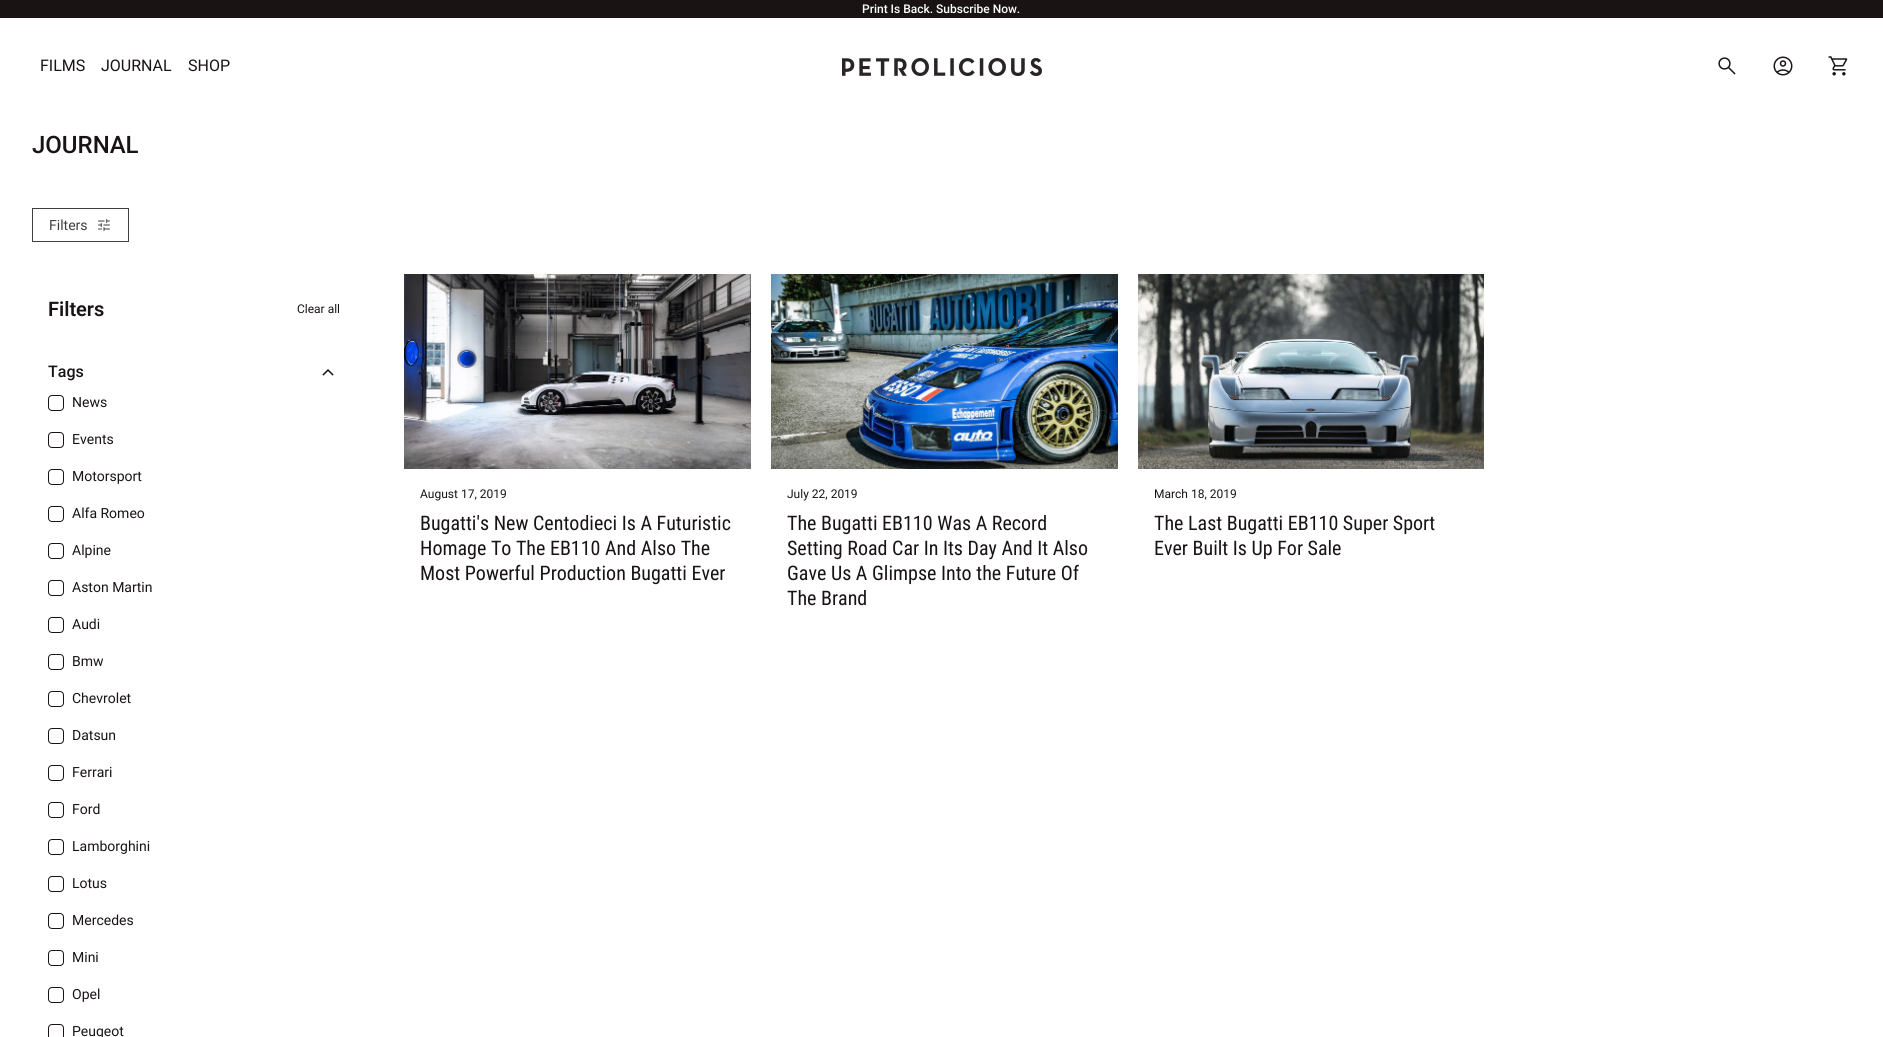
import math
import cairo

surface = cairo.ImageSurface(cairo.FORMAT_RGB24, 1883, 1037)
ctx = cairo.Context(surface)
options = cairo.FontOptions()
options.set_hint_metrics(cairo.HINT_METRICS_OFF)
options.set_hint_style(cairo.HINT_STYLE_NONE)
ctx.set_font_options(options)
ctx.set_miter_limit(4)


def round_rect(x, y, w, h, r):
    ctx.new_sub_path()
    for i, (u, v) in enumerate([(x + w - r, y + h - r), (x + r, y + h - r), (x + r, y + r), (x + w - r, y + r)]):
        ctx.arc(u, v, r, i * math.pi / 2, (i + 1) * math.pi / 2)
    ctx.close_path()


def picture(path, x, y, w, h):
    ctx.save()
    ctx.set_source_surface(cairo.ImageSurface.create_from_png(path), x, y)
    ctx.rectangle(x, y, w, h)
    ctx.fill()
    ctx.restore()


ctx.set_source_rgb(1, 1, 1)
ctx.paint()
ctx.set_source_rgb(0.098, 0.078, 0.082)
ctx.rectangle(0, 0, 1883, 18)
ctx.fill()
ctx.select_font_face("Roboto Medium")
ctx.set_font_size(12)
ctx.set_source_rgb(1, 1, 1)
ctx.move_to(862, 13)
ctx.show_text("Print Is Back. Subscribe Now.")
ctx.select_font_face("Roboto")
ctx.set_font_size(16)
ctx.set_source_rgb(0.098, 0.078, 0.082)
ctx.move_to(40, 71)
ctx.show_text("FILMS")
ctx.move_to(101, 71)
ctx.show_text("JOURNAL")
ctx.move_to(188, 71)
ctx.show_text("SHOP")
picture("img1.png", 842, 58, 200, 18)
picture("img2.png", 1718, 57, 18, 18)
picture("img3.png", 1773, 56, 20, 20)
picture("img4.png", 1828, 56, 20, 20)
ctx.select_font_face("Roboto Medium")
ctx.set_font_size(24)
ctx.move_to(32, 153)
ctx.show_text("JOURNAL")
ctx.rectangle(32.5, 208.5, 96, 33)
ctx.set_source_rgb(0.243, 0.243, 0.243)
ctx.set_line_width(1)
ctx.stroke()
ctx.select_font_face("Roboto")
ctx.set_font_size(14)
ctx.move_to(49, 230)
ctx.show_text("Filters")
picture("img5.png", 98, 219, 12, 12)
ctx.select_font_face("Roboto SemiBold")
ctx.set_font_size(20)
ctx.set_source_rgb(0.098, 0.078, 0.082)
ctx.move_to(48, 316)
ctx.show_text("Filters")
ctx.select_font_face("Roboto")
ctx.set_font_size(12)
ctx.move_to(297, 313)
ctx.show_text("Clear all")
ctx.select_font_face("Roboto Medium")
ctx.set_font_size(16)
ctx.move_to(48, 377)
ctx.show_text("Tags")
picture("img6.png", 322, 369, 12, 7)
round_rect(48.5, 395.5, 15, 15, 3.5)
ctx.stroke()
ctx.select_font_face("Roboto")
ctx.set_font_size(14)
ctx.move_to(72, 407)
ctx.show_text("News")
round_rect(48.5, 432.5, 15, 15, 3.5)
ctx.stroke()
ctx.move_to(72, 444)
ctx.show_text("Events")
round_rect(48.5, 469.5, 15, 15, 3.5)
ctx.stroke()
ctx.move_to(72, 481)
ctx.show_text("Motorsport")
round_rect(48.5, 506.5, 15, 15, 3.5)
ctx.stroke()
ctx.move_to(72, 518)
ctx.show_text("Alfa Romeo")
round_rect(48.5, 543.5, 15, 15, 3.5)
ctx.stroke()
ctx.move_to(72, 555)
ctx.show_text("Alpine")
round_rect(48.5, 580.5, 15, 15, 3.5)
ctx.stroke()
ctx.move_to(72, 592)
ctx.show_text("Aston Martin")
round_rect(48.5, 617.5, 15, 15, 3.5)
ctx.stroke()
ctx.move_to(72, 629)
ctx.show_text("Audi")
round_rect(48.5, 654.5, 15, 15, 3.5)
ctx.stroke()
ctx.move_to(72, 666)
ctx.show_text("Bmw")
round_rect(48.5, 691.5, 15, 15, 3.5)
ctx.stroke()
ctx.move_to(72, 703)
ctx.show_text("Chevrolet")
round_rect(48.5, 728.5, 15, 15, 3.5)
ctx.stroke()
ctx.move_to(72, 740)
ctx.show_text("Datsun")
round_rect(48.5, 765.5, 15, 15, 3.5)
ctx.stroke()
ctx.move_to(72, 777)
ctx.show_text("Ferrari")
round_rect(48.5, 802.5, 15, 15, 3.5)
ctx.stroke()
ctx.move_to(72, 814)
ctx.show_text("Ford")
round_rect(48.5, 839.5, 15, 15, 3.5)
ctx.stroke()
ctx.move_to(72, 851)
ctx.show_text("Lamborghini")
round_rect(48.5, 876.5, 15, 15, 3.5)
ctx.stroke()
ctx.move_to(72, 888)
ctx.show_text("Lotus")
round_rect(48.5, 913.5, 15, 15, 3.5)
ctx.stroke()
ctx.move_to(72, 925)
ctx.show_text("Mercedes")
round_rect(48.5, 950.5, 15, 15, 3.5)
ctx.stroke()
ctx.move_to(72, 962)
ctx.show_text("Mini")
round_rect(48.5, 987.5, 15, 15, 3.5)
ctx.stroke()
ctx.move_to(72, 999)
ctx.show_text("Opel")
round_rect(48.5, 1024.5, 15, 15, 3.5)
ctx.stroke()
ctx.move_to(72, 1036)
ctx.show_text("Peugeot")
picture("img7.png", 404, 274, 347, 195)
ctx.set_font_size(12)
ctx.move_to(420, 498)
ctx.show_text("August 17, 2019")
ctx.select_font_face("Roboto Condensed")
ctx.set_font_size(20)
ctx.move_to(420, 530)
ctx.show_text("Bugatti's New Centodieci Is A Futuristic")
ctx.move_to(420, 555)
ctx.show_text("Homage To The EB110 And Also The")
ctx.move_to(420, 580)
ctx.show_text("Most Powerful Production Bugatti Ever")
picture("img8.png", 771, 274, 347, 195)
ctx.select_font_face("Roboto")
ctx.set_font_size(12)
ctx.move_to(787, 498)
ctx.show_text("July 22, 2019")
ctx.select_font_face("Roboto Condensed")
ctx.set_font_size(20)
ctx.move_to(787, 530)
ctx.show_text("The Bugatti EB110 Was A Record")
ctx.move_to(787, 555)
ctx.show_text("Setting Road Car In Its Day And It Also")
ctx.move_to(787, 580)
ctx.show_text("Gave Us A Glimpse Into the Future Of")
ctx.move_to(787, 605)
ctx.show_text("The Brand")
picture("img9.png", 1138, 274, 346, 195)
ctx.select_font_face("Roboto")
ctx.set_font_size(12)
ctx.move_to(1154, 498)
ctx.show_text("March 18, 2019")
ctx.select_font_face("Roboto Condensed")
ctx.set_font_size(20)
ctx.move_to(1154, 530)
ctx.show_text("The Last Bugatti EB110 Super Sport")
ctx.move_to(1154, 555)
ctx.show_text("Ever Built Is Up For Sale")
surface.write_to_png("page.png")
